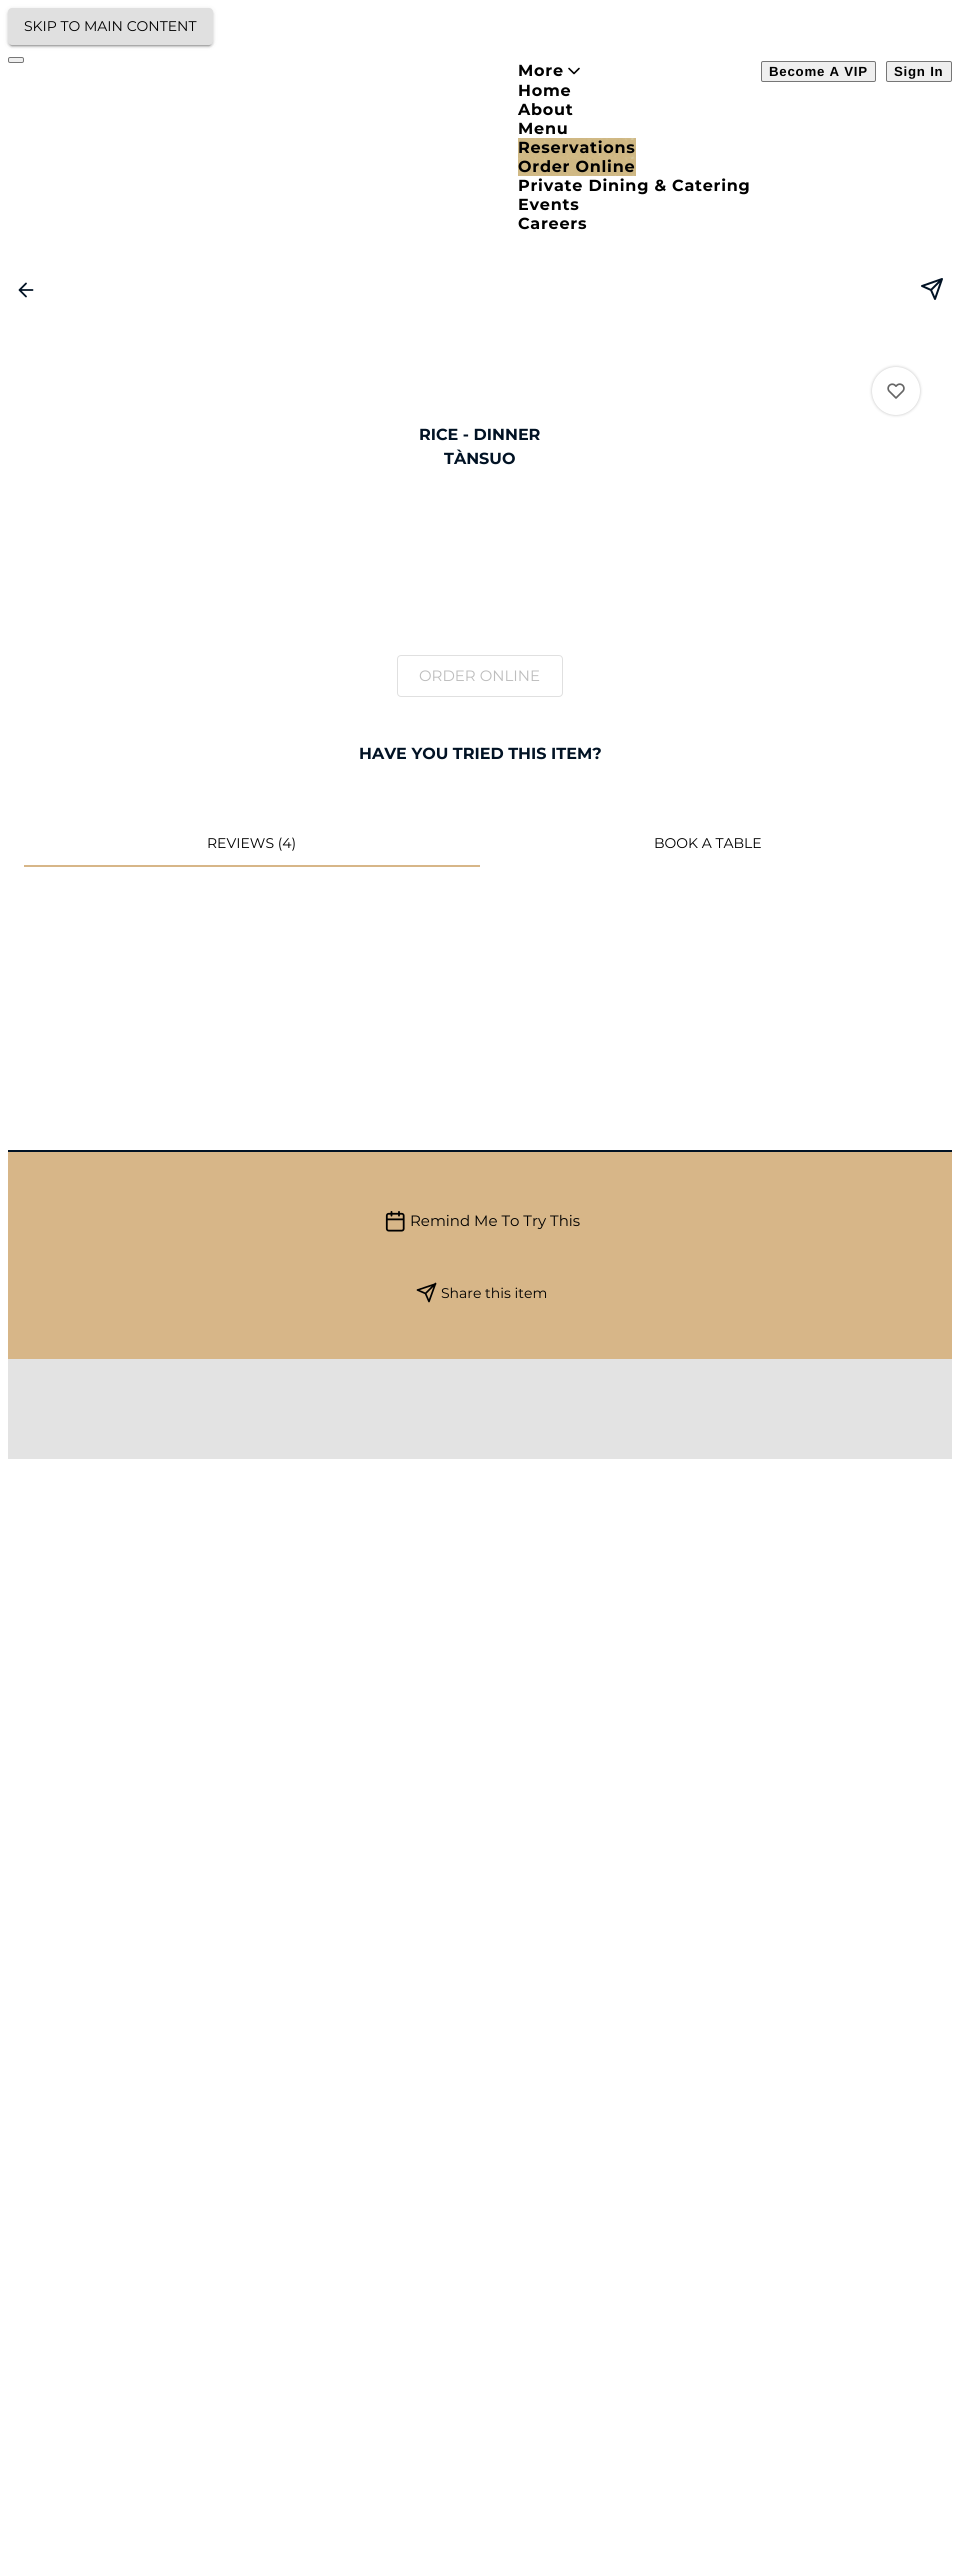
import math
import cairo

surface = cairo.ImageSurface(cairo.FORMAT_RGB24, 960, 2561)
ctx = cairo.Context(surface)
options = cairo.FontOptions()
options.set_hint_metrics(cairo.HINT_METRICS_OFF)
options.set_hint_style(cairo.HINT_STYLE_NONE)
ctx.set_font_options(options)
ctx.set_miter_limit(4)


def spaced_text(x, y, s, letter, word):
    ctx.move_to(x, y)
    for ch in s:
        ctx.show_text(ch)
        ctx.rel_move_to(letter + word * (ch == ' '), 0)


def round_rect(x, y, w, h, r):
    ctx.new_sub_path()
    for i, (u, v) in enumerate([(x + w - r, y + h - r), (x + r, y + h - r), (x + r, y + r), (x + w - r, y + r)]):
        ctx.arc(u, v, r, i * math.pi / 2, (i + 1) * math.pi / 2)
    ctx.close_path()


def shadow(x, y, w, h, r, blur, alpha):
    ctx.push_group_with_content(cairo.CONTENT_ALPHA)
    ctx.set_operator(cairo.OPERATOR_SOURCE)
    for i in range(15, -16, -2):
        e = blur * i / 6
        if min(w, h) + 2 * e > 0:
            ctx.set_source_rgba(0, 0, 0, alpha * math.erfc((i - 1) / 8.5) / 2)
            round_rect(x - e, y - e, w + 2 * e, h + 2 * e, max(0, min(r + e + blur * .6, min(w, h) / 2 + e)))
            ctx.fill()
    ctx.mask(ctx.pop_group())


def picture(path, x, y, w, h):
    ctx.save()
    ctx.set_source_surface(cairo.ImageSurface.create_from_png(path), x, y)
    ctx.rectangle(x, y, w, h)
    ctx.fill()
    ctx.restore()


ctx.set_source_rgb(1, 1, 1)
ctx.paint()
ctx.set_source_rgb(0, 0, 0)
shadow(8, 9, 205, 37, 4, 2.5, 0.12)
shadow(8, 10, 205, 37, 4, 1, 0.14)
shadow(10, 13, 201, 33, 2, 0.5, 0.2)
ctx.set_source_rgb(0.878, 0.878, 0.878)
round_rect(8, 8, 205, 37, 4)
ctx.fill()
ctx.select_font_face("Montserrat")
ctx.set_font_size(14)
ctx.set_source_rgb(0, 0, 0)
ctx.move_to(24, 31)
ctx.show_text("SKIP TO MAIN CONTENT")
ctx.set_source_rgb(0.937, 0.937, 0.937)
round_rect(8.5, 57.5, 15, 5, 1.5)
ctx.fill_preserve()
ctx.set_source_rgb(0.463, 0.463, 0.463)
ctx.set_line_width(1)
ctx.stroke()
ctx.select_font_face("Montserrat", cairo.FONT_SLANT_NORMAL, cairo.FONT_WEIGHT_BOLD)
ctx.set_font_size(16)
ctx.set_source_rgb(0, 0, 0)
spaced_text(518, 76, "More", 0.75, 0)
ctx.new_path()
ctx.move_to(569, 68.5)
ctx.line_to(574, 73.5)
ctx.line_to(579, 68.5)
ctx.set_line_width(1.6)
ctx.set_line_cap(cairo.LINE_CAP_ROUND)
ctx.set_line_join(cairo.LINE_JOIN_ROUND)
ctx.stroke()
spaced_text(518, 96, "Home", 0.75, 0)
spaced_text(518, 115, "About", 0.75, 0)
spaced_text(518, 134, "Menu", 0.75, 0)
picture("img1.png", 518, 138, 118, 19)
spaced_text(518, 153, "Reservations", 0.75, 0)
picture("img2.png", 518, 157, 118, 19)
spaced_text(518, 172, "Order Online", 0.75, 0)
spaced_text(518, 191, "Private Dining & Catering", 0.75, 0)
spaced_text(518, 210, "Events", 0.75, 0)
spaced_text(518, 229, "Careers", 0.75, 0)
ctx.set_source_rgb(0.937, 0.937, 0.937)
round_rect(761.5, 61.5, 114, 20, 1.5)
ctx.fill_preserve()
ctx.set_source_rgb(0.463, 0.463, 0.463)
ctx.set_line_width(1)
ctx.set_line_cap(cairo.LINE_CAP_BUTT)
ctx.set_line_join(cairo.LINE_JOIN_MITER)
ctx.stroke()
ctx.select_font_face("Liberation Sans", cairo.FONT_SLANT_NORMAL, cairo.FONT_WEIGHT_BOLD)
ctx.set_font_size(13.25)
ctx.set_source_rgb(0, 0, 0)
spaced_text(769, 76, "Become A VIP", 0.75, 0)
ctx.set_source_rgb(0.937, 0.937, 0.937)
round_rect(886.5, 61.5, 65, 20, 1.5)
ctx.fill_preserve()
ctx.set_source_rgb(0.463, 0.463, 0.463)
ctx.stroke()
ctx.set_source_rgb(0, 0, 0)
spaced_text(894, 76, "Sign In", 0.75, 0)
ctx.new_path()
ctx.move_to(32.5, 290)
ctx.line_to(19.5, 290)
ctx.move_to(26, 296.5)
ctx.line_to(19.5, 290)
ctx.line_to(26, 283.5)
ctx.set_source_rgb(0.004, 0.071, 0.141)
ctx.set_line_width(1.8)
ctx.set_line_cap(cairo.LINE_CAP_ROUND)
ctx.set_line_join(cairo.LINE_JOIN_ROUND)
ctx.stroke()
ctx.new_path()
ctx.move_to(942, 279)
ctx.line_to(931, 290)
ctx.move_to(942, 279)
ctx.line_to(935, 299)
ctx.line_to(931, 290)
ctx.line_to(922, 286)
ctx.close_path()
ctx.set_line_width(2)
ctx.stroke()
ctx.set_source_rgb(0, 0, 0)
shadow(872, 367, 48, 48, 24, 1.5, 0.25)
ctx.set_source_rgb(1, 1, 1)
ctx.arc(896, 391, 24, 0, 2 * math.pi)
ctx.fill()
picture("img3.png", 887, 383, 18, 16)
ctx.select_font_face("Montserrat", cairo.FONT_SLANT_NORMAL, cairo.FONT_WEIGHT_BOLD)
ctx.set_font_size(16)
ctx.set_source_rgb(0.004, 0.071, 0.141)
ctx.move_to(419, 440)
ctx.show_text("RICE - DINNER")
ctx.move_to(444, 464)
ctx.show_text("TÀNSUO")
round_rect(397.5, 655.5, 165, 41, 3.5)
ctx.set_source_rgb(0.878, 0.878, 0.878)
ctx.set_line_width(1)
ctx.set_line_cap(cairo.LINE_CAP_BUTT)
ctx.set_line_join(cairo.LINE_JOIN_MITER)
ctx.stroke()
ctx.select_font_face("Montserrat")
ctx.set_font_size(15)
ctx.set_source_rgb(0.741, 0.741, 0.741)
ctx.move_to(419, 681)
ctx.show_text("ORDER ONLINE")
ctx.select_font_face("Montserrat", cairo.FONT_SLANT_NORMAL, cairo.FONT_WEIGHT_BOLD)
ctx.set_font_size(16)
ctx.set_source_rgb(0.004, 0.071, 0.141)
ctx.move_to(359, 759)
ctx.show_text("HAVE YOU TRIED THIS ITEM?")
ctx.select_font_face("Montserrat")
ctx.set_font_size(14)
ctx.set_source_rgb(0, 0, 0)
ctx.move_to(207, 848)
ctx.show_text("REVIEWS (4)")
ctx.set_source_rgb(0.843, 0.714, 0.533)
ctx.rectangle(24, 865, 456, 2)
ctx.fill()
ctx.set_source_rgb(0, 0, 0)
ctx.move_to(654, 848)
ctx.show_text("BOOK A TABLE")
ctx.set_source_rgb(0.843, 0.714, 0.533)
ctx.rectangle(8, 1152, 944, 207)
ctx.fill()
ctx.set_source_rgb(0.004, 0.071, 0.141)
ctx.rectangle(8, 1150, 944, 2)
ctx.fill()
picture("img4.png", 385, 1211, 20, 21)
ctx.set_font_size(15)
ctx.set_source_rgb(0, 0, 0)
ctx.move_to(410, 1226)
ctx.show_text("Remind Me To Try This")
ctx.new_path()
ctx.move_to(435.5, 1283.5)
ctx.line_to(425.5, 1293.5)
ctx.move_to(435.5, 1283.5)
ctx.line_to(429, 1301.5)
ctx.line_to(425.5, 1293.5)
ctx.line_to(417.5, 1290)
ctx.line_to(435.5, 1284)
ctx.close_path()
ctx.set_line_width(1.7)
ctx.set_line_cap(cairo.LINE_CAP_ROUND)
ctx.set_line_join(cairo.LINE_JOIN_ROUND)
ctx.stroke()
ctx.set_font_size(14)
ctx.move_to(441, 1298)
ctx.show_text("Share this item")
ctx.set_source_rgb(0.89, 0.89, 0.89)
ctx.rectangle(8, 1359, 944, 100)
ctx.fill()
surface.write_to_png("page.png")
